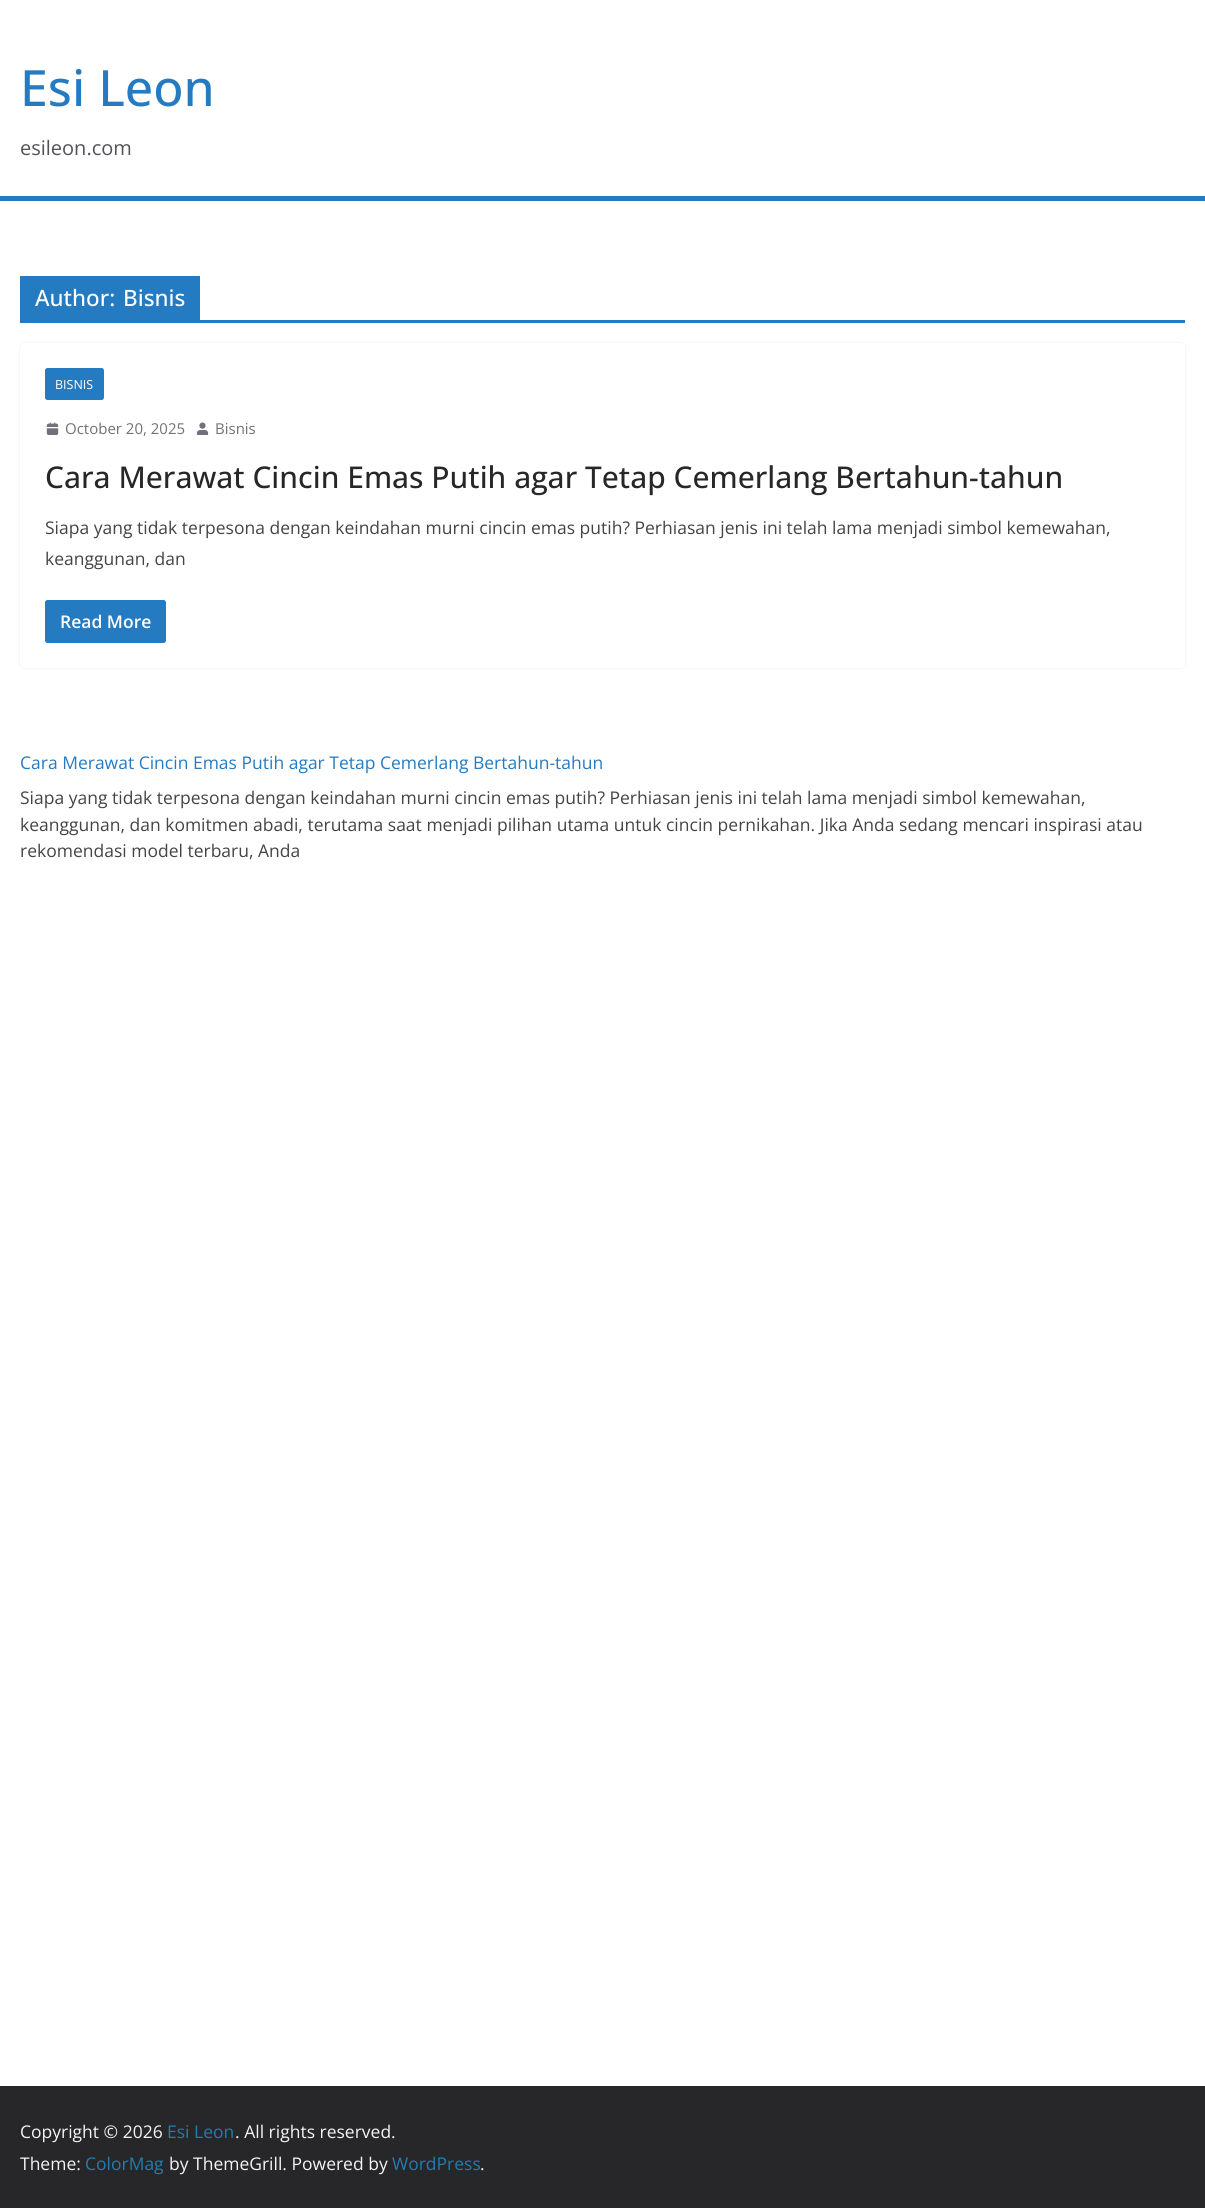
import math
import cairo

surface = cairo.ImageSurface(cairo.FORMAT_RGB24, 1205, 2208)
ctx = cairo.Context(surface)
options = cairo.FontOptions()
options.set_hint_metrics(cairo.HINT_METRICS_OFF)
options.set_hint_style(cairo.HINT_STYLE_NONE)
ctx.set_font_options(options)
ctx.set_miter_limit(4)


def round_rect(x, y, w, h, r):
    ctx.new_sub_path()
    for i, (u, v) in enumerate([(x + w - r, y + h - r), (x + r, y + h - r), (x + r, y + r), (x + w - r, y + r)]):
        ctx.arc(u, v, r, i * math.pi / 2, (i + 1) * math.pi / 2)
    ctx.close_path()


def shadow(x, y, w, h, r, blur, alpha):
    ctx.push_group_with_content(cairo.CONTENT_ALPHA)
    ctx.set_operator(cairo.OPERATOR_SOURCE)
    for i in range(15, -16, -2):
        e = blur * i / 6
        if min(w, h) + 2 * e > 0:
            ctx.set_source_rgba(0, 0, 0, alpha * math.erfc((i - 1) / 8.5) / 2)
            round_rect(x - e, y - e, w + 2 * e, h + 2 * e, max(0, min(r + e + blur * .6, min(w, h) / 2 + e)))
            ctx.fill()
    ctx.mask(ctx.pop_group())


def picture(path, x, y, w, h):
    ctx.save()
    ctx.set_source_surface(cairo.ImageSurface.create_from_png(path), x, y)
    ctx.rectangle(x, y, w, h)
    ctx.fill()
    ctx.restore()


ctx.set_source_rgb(1, 1, 1)
ctx.paint()
ctx.select_font_face("Open Sans Medium")
ctx.set_font_size(50)
ctx.set_source_rgb(0.145, 0.482, 0.757)
ctx.move_to(20, 106)
ctx.show_text("Esi Leon")
ctx.select_font_face("Open Sans")
ctx.set_font_size(20)
ctx.set_source_rgb(0.322, 0.322, 0.357)
ctx.move_to(20, 155)
ctx.show_text("esileon.com")
ctx.set_source_rgb(0.145, 0.482, 0.757)
ctx.rectangle(0, 196, 1205, 5)
ctx.fill()
ctx.rectangle(20, 320, 1165, 3)
ctx.fill()
ctx.rectangle(20, 276, 180, 44)
ctx.fill()
ctx.select_font_face("Open Sans Medium")
ctx.set_font_size(22.5)
ctx.set_source_rgb(1, 1, 1)
ctx.move_to(35, 306)
ctx.show_text("Author:")
ctx.move_to(123, 306)
ctx.show_text("Bisnis")
ctx.save()
ctx.set_fill_rule(cairo.FILL_RULE_EVEN_ODD)
ctx.new_path()
ctx.move_to(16, 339)
ctx.line_to(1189, 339)
ctx.line_to(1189, 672)
ctx.line_to(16, 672)
ctx.close_path()
ctx.move_to(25, 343)
ctx.line_to(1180, 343)
ctx.curve_to(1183, 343, 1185, 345, 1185, 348)
ctx.line_to(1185, 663)
ctx.curve_to(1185, 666, 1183, 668, 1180, 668)
ctx.line_to(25, 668)
ctx.curve_to(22, 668, 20, 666, 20, 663)
ctx.line_to(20, 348)
ctx.curve_to(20, 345, 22, 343, 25, 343)
ctx.close_path()
ctx.clip()
ctx.set_source_rgb(0.894, 0.894, 0.906)
shadow(20, 343, 1165, 325, 5, 1, 1)
ctx.restore()
ctx.set_source_rgb(0.145, 0.482, 0.757)
round_rect(45, 368, 59, 32, 2.5)
ctx.fill()
ctx.select_font_face("Open Sans")
ctx.set_font_size(12.5)
ctx.set_source_rgb(1, 1, 1)
ctx.move_to(55, 389)
ctx.show_text("BISNIS")
picture("img1.png", 46, 422, 13, 13)
ctx.set_font_size(15)
ctx.set_source_rgb(0.443, 0.443, 0.478)
ctx.move_to(65, 434)
ctx.show_text("October 20, 2025")
picture("img2.png", 196, 422, 13, 13)
ctx.move_to(215, 434)
ctx.show_text("Bisnis")
ctx.select_font_face("Open Sans Medium")
ctx.set_font_size(30)
ctx.set_source_rgb(0.153, 0.153, 0.165)
ctx.move_to(45, 488)
ctx.show_text("Cara Merawat Cincin Emas Putih agar Tetap Cemerlang Bertahun-tahun")
ctx.select_font_face("Open Sans")
ctx.set_font_size(17.5)
ctx.set_source_rgb(0.267, 0.267, 0.267)
ctx.move_to(45, 534)
ctx.show_text("Siapa yang tidak terpesona dengan keindahan murni cincin emas putih? Perhiasan jenis ini telah lama menjadi simbol kemewahan,")
ctx.move_to(45, 565)
ctx.show_text("keanggunan, dan")
ctx.set_source_rgb(0.145, 0.482, 0.757)
round_rect(45, 600, 121, 43, 2.5)
ctx.fill()
ctx.select_font_face("Open Sans SemiBold")
ctx.set_source_rgb(1, 1, 1)
ctx.move_to(60, 628)
ctx.show_text("Read More")
ctx.select_font_face("Open Sans")
ctx.set_source_rgb(0.145, 0.482, 0.757)
ctx.move_to(20, 769)
ctx.show_text("Cara Merawat Cincin Emas Putih agar Tetap Cemerlang Bertahun-tahun")
ctx.set_source_rgb(0.267, 0.267, 0.267)
ctx.move_to(20, 804)
ctx.show_text("Siapa yang tidak terpesona dengan keindahan murni cincin emas putih? Perhiasan jenis ini telah lama menjadi simbol kemewahan,")
ctx.move_to(20, 831)
ctx.show_text("keanggunan, dan komitmen abadi, terutama saat menjadi pilihan utama untuk cincin pernikahan. Jika Anda sedang mencari inspirasi atau")
ctx.move_to(20, 857)
ctx.show_text("rekomendasi model terbaru, Anda")
ctx.set_source_rgb(0.153, 0.153, 0.165)
ctx.rectangle(0, 2086, 1205, 122)
ctx.fill()
ctx.set_source_rgb(0.957, 0.957, 0.961)
ctx.move_to(20, 2138)
ctx.show_text("Copyright © 2026")
ctx.set_source_rgb(0.125, 0.49, 0.686)
ctx.move_to(167, 2138)
ctx.show_text("Esi Leon")
ctx.set_source_rgb(0.957, 0.957, 0.961)
ctx.move_to(235, 2138)
ctx.show_text(". All rights reserved.")
ctx.move_to(20, 2170)
ctx.show_text("Theme:")
ctx.set_source_rgb(0.125, 0.49, 0.686)
ctx.move_to(85, 2170)
ctx.show_text("ColorMag")
ctx.set_source_rgb(0.957, 0.957, 0.961)
ctx.move_to(169, 2170)
ctx.show_text("by ThemeGrill. Powered by")
ctx.set_source_rgb(0.125, 0.49, 0.686)
ctx.move_to(392, 2170)
ctx.show_text("WordPress")
ctx.set_source_rgb(0.957, 0.957, 0.961)
ctx.move_to(480, 2170)
ctx.show_text(".")
surface.write_to_png("page.png")
